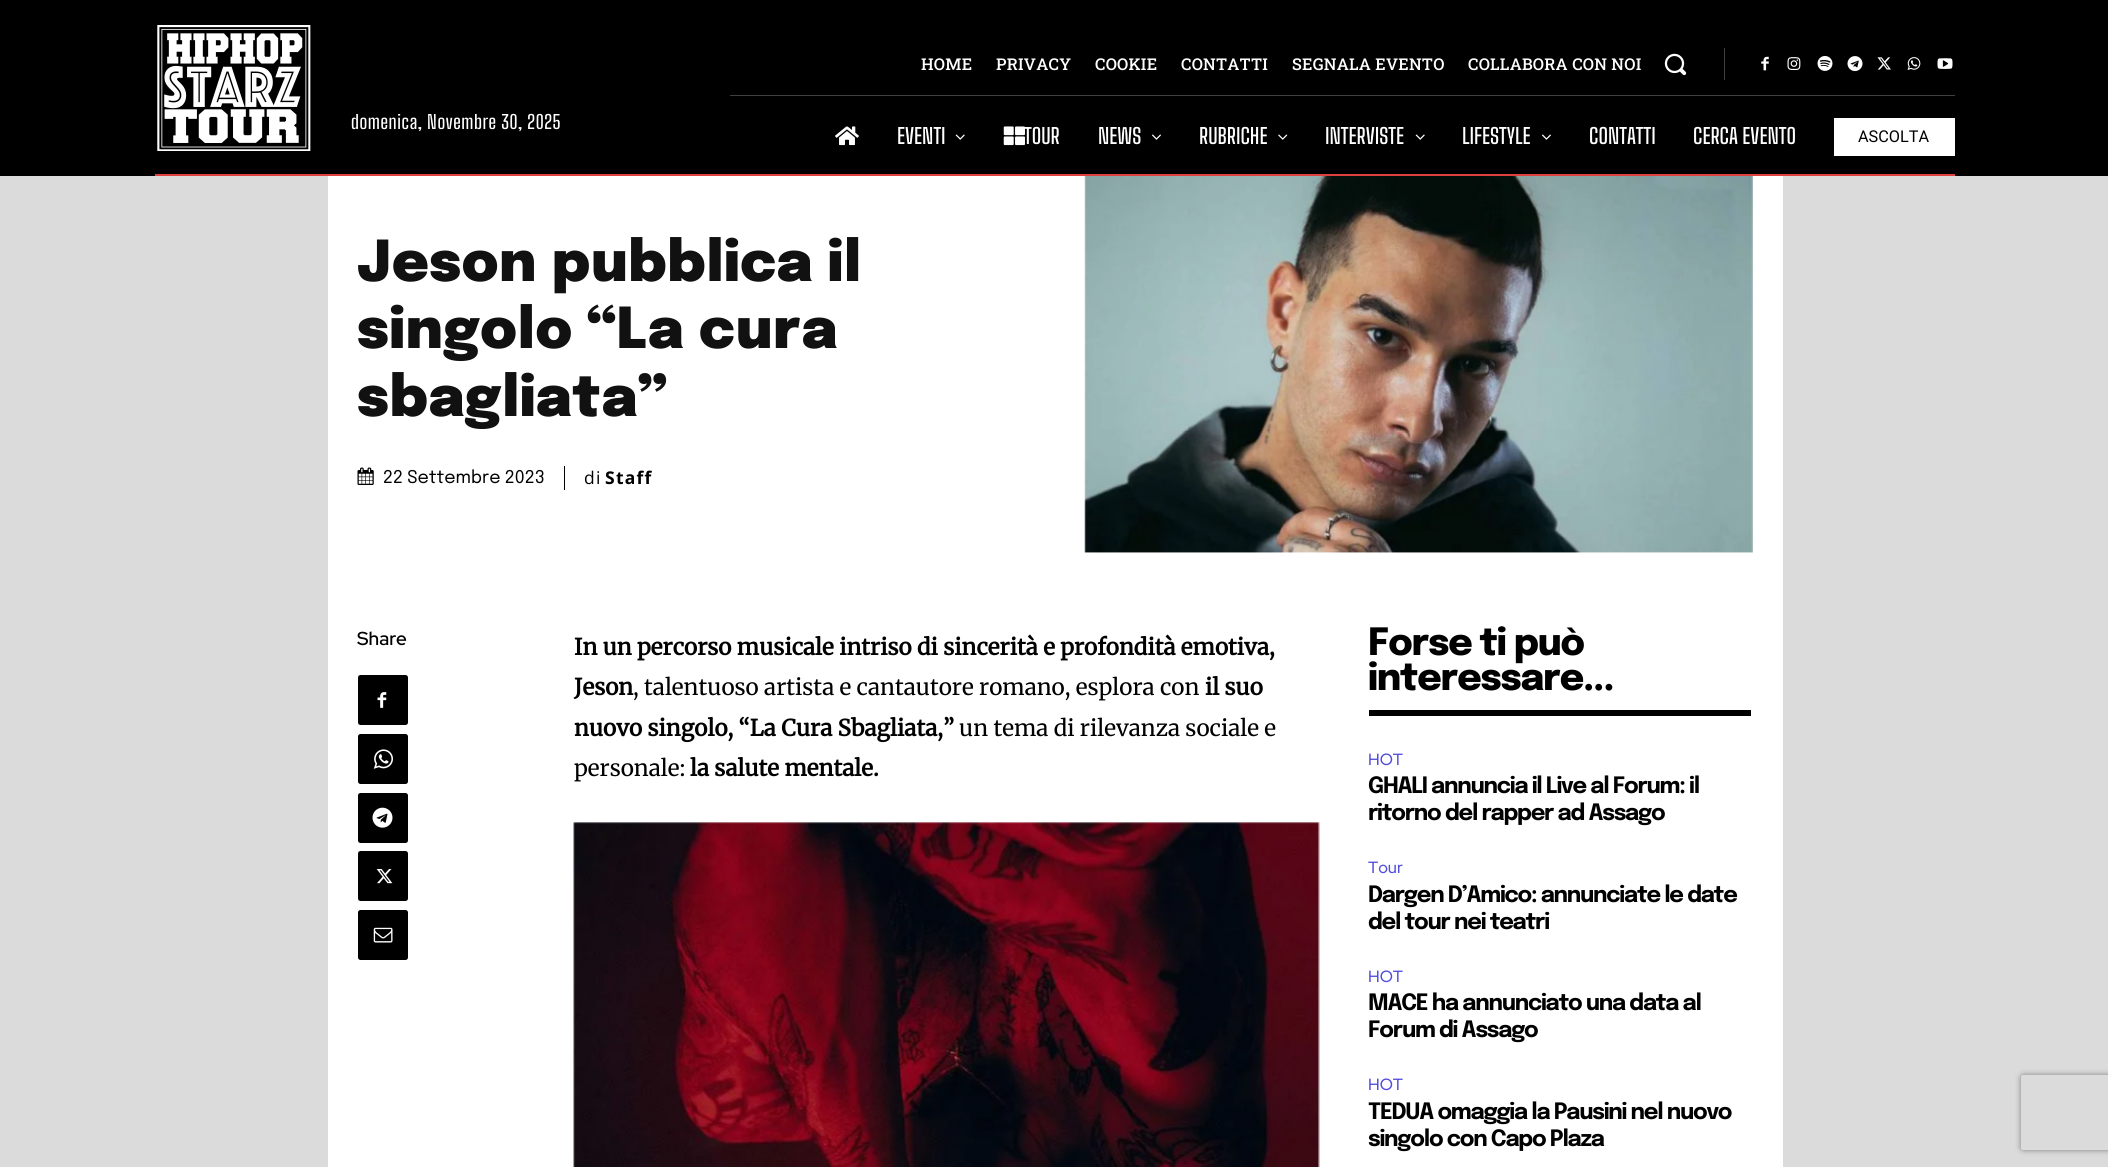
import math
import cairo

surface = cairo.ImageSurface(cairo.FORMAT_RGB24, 2108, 1167)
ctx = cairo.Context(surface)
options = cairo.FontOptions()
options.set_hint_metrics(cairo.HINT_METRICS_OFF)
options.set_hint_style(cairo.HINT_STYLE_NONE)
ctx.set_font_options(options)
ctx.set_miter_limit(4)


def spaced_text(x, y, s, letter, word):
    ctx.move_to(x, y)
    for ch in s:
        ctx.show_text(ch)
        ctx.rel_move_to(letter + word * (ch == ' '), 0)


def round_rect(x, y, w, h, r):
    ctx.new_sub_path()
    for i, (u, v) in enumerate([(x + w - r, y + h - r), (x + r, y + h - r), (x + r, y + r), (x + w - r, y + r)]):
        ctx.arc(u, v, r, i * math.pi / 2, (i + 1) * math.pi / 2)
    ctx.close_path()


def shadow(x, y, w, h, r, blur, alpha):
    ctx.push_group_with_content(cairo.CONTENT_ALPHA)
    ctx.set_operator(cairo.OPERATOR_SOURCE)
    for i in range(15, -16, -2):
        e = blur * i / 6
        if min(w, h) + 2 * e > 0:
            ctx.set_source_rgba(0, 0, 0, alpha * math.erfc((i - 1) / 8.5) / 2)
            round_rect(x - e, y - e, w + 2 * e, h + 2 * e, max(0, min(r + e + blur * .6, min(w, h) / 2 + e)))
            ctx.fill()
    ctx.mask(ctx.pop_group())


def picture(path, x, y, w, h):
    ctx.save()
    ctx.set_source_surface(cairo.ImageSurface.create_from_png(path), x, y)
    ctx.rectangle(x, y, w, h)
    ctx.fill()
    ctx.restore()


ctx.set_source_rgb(0.859, 0.859, 0.859)
ctx.paint()
ctx.set_source_rgb(0, 0, 0)
ctx.rectangle(0, 0, 2108, 176)
ctx.fill()
picture("img1.png", 157, 25, 154, 126)
ctx.select_font_face("Big Shoulders Text Medium")
ctx.set_font_size(18.75)
ctx.set_source_rgb(1, 1, 1)
spaced_text(351, 129, "domenica, Novembre 30, 2025", 0.6, 0)
ctx.select_font_face("Roboto Slab Medium")
ctx.set_font_size(16.25)
spaced_text(921, 70, "HOME", 0.25, 0)
spaced_text(996, 70, "PRIVACY", 0.25, 0)
spaced_text(1095, 70, "COOKIE", 0.25, 0)
spaced_text(1181, 70, "CONTATTI", 0.25, 0)
spaced_text(1292, 70, "SEGNALA EVENTO", 0.25, 0)
spaced_text(1468, 70, "COLLABORA CON NOI", 0.25, 0)
picture("img2.png", 1664, 53, 23, 23)
ctx.set_source_rgb(0.251, 0.251, 0.251)
ctx.rectangle(1724, 48, 1, 32)
ctx.fill()
picture("img3.png", 1761, 56, 8, 15)
picture("img4.png", 1787, 57, 14, 13)
picture("img5.png", 1817, 56, 16, 15)
picture("img6.png", 1847, 56, 16, 16)
picture("img7.png", 1877, 57, 14, 13)
picture("img8.png", 1907, 57, 14, 13)
picture("img9.png", 1937, 58, 16, 11)
ctx.rectangle(730, 95, 1225, 1)
ctx.fill()
picture("img10.png", 835, 126, 24, 20)
ctx.select_font_face("Big Shoulders Text SemiBold")
ctx.set_font_size(21.25)
ctx.set_source_rgb(1, 1, 1)
ctx.move_to(897, 144)
ctx.show_text("EVENTI")
picture("img11.png", 955, 134, 10, 6)
picture("img12.png", 1003, 126, 22, 20)
ctx.move_to(1024, 144)
ctx.show_text("TOUR")
ctx.move_to(1098, 144)
ctx.show_text("NEWS")
picture("img13.png", 1152, 134, 9, 6)
ctx.move_to(1199, 144)
ctx.show_text("RUBRICHE")
picture("img14.png", 1278, 134, 10, 6)
ctx.move_to(1325, 144)
ctx.show_text("INTERVISTE")
picture("img11.png", 1415, 134, 10, 6)
ctx.move_to(1462, 144)
ctx.show_text("LIFESTYLE")
picture("img13.png", 1542, 134, 9, 6)
ctx.move_to(1589, 144)
ctx.show_text("CONTATTI")
ctx.move_to(1693, 144)
ctx.show_text("CERCA EVENTO")
ctx.rectangle(1834, 118, 121, 38)
ctx.fill()
ctx.select_font_face("Roboto")
ctx.set_font_size(16.25)
ctx.set_source_rgb(0, 0, 0)
ctx.move_to(1858, 142)
ctx.show_text("ASCOLTA")
ctx.set_source_rgb(0.878, 0.251, 0.251)
ctx.rectangle(155, 174, 1800, 2)
ctx.fill()
ctx.set_source_rgb(1, 1, 1)
ctx.rectangle(328, 176, 1455, 991)
ctx.fill()
ctx.select_font_face("Epilogue Black")
ctx.set_font_size(56.25)
ctx.set_source_rgb(0.067, 0.067, 0.067)
spaced_text(357, 281, "Jeson pubblica il", 0.6, 0)
spaced_text(357, 348, "singolo “La cura", 0.6, 0)
spaced_text(357, 416, "sbagliata”", 0.6, 0)
picture("img15.png", 357, 467, 17, 18)
ctx.select_font_face("Epilogue")
ctx.set_font_size(17.5)
ctx.set_source_rgb(0, 0, 0)
ctx.move_to(383, 483)
ctx.show_text("22 Settembre 2023")
ctx.rectangle(564, 466, 1, 24)
ctx.fill()
ctx.select_font_face("Open Sans")
spaced_text(584, 484, "di", 1.25, 0)
ctx.select_font_face("Open Sans", cairo.FONT_SLANT_NORMAL, cairo.FONT_WEIGHT_BOLD)
spaced_text(605, 484, "Staff", 1.25, 0)
picture("img16.png", 1084, 176, 669, 377)
ctx.select_font_face("Red Hat Display SemiBold")
ctx.set_font_size(18.75)
ctx.move_to(357, 645)
ctx.show_text("Share")
round_rect(358, 675, 50, 50, 2.5)
ctx.fill()
picture("img17.png", 377, 692, 10, 16)
round_rect(358, 734, 50, 50, 2.5)
ctx.fill()
picture("img18.png", 373, 749, 20, 20)
round_rect(358, 793, 50, 50, 2.5)
ctx.fill()
picture("img19.png", 372, 807, 21, 21)
round_rect(358, 851, 50, 50, 2.5)
ctx.fill()
picture("img20.png", 376, 869, 17, 15)
round_rect(358, 910, 50, 50, 2.5)
ctx.fill()
picture("img21.png", 373, 927, 20, 16)
ctx.select_font_face("Merriweather", cairo.FONT_SLANT_NORMAL, cairo.FONT_WEIGHT_BOLD)
ctx.set_font_size(22.5)
ctx.move_to(574, 655)
ctx.show_text("In un percorso musicale intriso di sincerità e profondità emotiva,")
ctx.move_to(574, 695)
ctx.show_text("Jeson")
ctx.select_font_face("Merriweather Light")
ctx.move_to(633, 695)
ctx.show_text(", talentuoso artista e cantautore romano, esplora con")
ctx.select_font_face("Merriweather", cairo.FONT_SLANT_NORMAL, cairo.FONT_WEIGHT_BOLD)
ctx.move_to(1205, 695)
ctx.show_text("il suo")
ctx.move_to(574, 736)
ctx.show_text("nuovo singolo, “La Cura Sbagliata,”")
ctx.select_font_face("Merriweather Light")
ctx.move_to(959, 736)
ctx.show_text("un tema di rilevanza sociale e")
ctx.move_to(574, 776)
ctx.show_text("personale:")
ctx.select_font_face("Merriweather", cairo.FONT_SLANT_NORMAL, cairo.FONT_WEIGHT_BOLD)
ctx.move_to(690, 776)
ctx.show_text("la salute mentale.")
picture("img22.png", 573, 822, 747, 345)
ctx.rectangle(1369, 710, 382, 6)
ctx.fill()
ctx.select_font_face("Epilogue ExtraBold")
ctx.set_font_size(37.5)
spaced_text(1368, 655, "Forse ti può", -1.25, 0)
spaced_text(1368, 690, "interessare...", -1.25, 0)
ctx.select_font_face("Red Hat Display Medium")
ctx.set_font_size(16.25)
ctx.set_source_rgb(0.314, 0.294, 0.863)
ctx.move_to(1368, 765)
ctx.show_text("HOT")
ctx.select_font_face("Epilogue", cairo.FONT_SLANT_NORMAL, cairo.FONT_WEIGHT_BOLD)
ctx.set_font_size(22.5)
ctx.set_source_rgb(0, 0, 0)
spaced_text(1368, 793, "GHALI annuncia il Live al Forum: il", -1.25, 0)
spaced_text(1368, 820, "ritorno del rapper ad Assago", -1.25, 0)
ctx.select_font_face("Red Hat Display Medium")
ctx.set_font_size(16.25)
ctx.set_source_rgb(0.314, 0.294, 0.863)
ctx.move_to(1368, 873)
ctx.show_text("Tour")
ctx.select_font_face("Epilogue", cairo.FONT_SLANT_NORMAL, cairo.FONT_WEIGHT_BOLD)
ctx.set_font_size(22.5)
ctx.set_source_rgb(0, 0, 0)
spaced_text(1368, 902, "Dargen D’Amico: annunciate le date", -1.25, 0)
spaced_text(1368, 929, "del tour nei teatri", -1.25, 0)
ctx.select_font_face("Red Hat Display Medium")
ctx.set_font_size(16.25)
ctx.set_source_rgb(0.314, 0.294, 0.863)
ctx.move_to(1368, 982)
ctx.show_text("HOT")
ctx.select_font_face("Epilogue", cairo.FONT_SLANT_NORMAL, cairo.FONT_WEIGHT_BOLD)
ctx.set_font_size(22.5)
ctx.set_source_rgb(0, 0, 0)
spaced_text(1368, 1010, "MACE ha annunciato una data al", -1.25, 0)
spaced_text(1368, 1037, "Forum di Assago", -1.25, 0)
ctx.select_font_face("Red Hat Display Medium")
ctx.set_font_size(16.25)
ctx.set_source_rgb(0.314, 0.294, 0.863)
ctx.move_to(1368, 1090)
ctx.show_text("HOT")
ctx.select_font_face("Epilogue", cairo.FONT_SLANT_NORMAL, cairo.FONT_WEIGHT_BOLD)
ctx.set_font_size(22.5)
ctx.set_source_rgb(0, 0, 0)
spaced_text(1368, 1119, "TEDUA omaggia la Pausini nel nuovo", -1.25, 0)
spaced_text(1368, 1146, "singolo con Capo Plaza", -1.25, 0)
ctx.save()
ctx.set_fill_rule(cairo.FILL_RULE_EVEN_ODD)
ctx.new_path()
ctx.move_to(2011, 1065)
ctx.line_to(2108, 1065)
ctx.line_to(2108, 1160)
ctx.line_to(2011, 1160)
ctx.close_path()
ctx.move_to(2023.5, 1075)
ctx.line_to(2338.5, 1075)
ctx.curve_to(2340, 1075, 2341, 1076, 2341, 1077.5)
ctx.line_to(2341, 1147.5)
ctx.curve_to(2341, 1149, 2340, 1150, 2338.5, 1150)
ctx.line_to(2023.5, 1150)
ctx.curve_to(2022, 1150, 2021, 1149, 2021, 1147.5)
ctx.line_to(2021, 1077.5)
ctx.curve_to(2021, 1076, 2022, 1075, 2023.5, 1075)
ctx.close_path()
ctx.clip()
ctx.set_source_rgb(0.502, 0.502, 0.502)
shadow(2021, 1075, 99, 75, 2.5, 3, 1)
ctx.restore()
surface.write_to_png("page.png")
